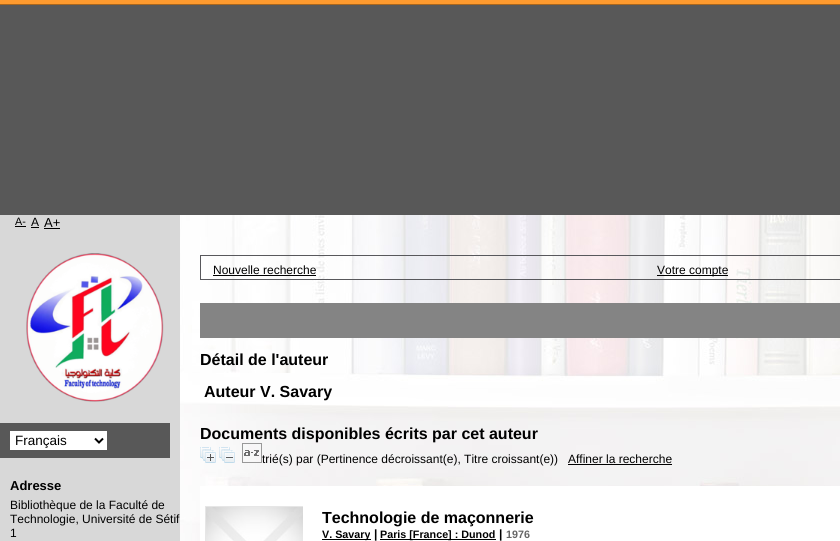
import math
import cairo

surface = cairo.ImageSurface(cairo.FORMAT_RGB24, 840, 541)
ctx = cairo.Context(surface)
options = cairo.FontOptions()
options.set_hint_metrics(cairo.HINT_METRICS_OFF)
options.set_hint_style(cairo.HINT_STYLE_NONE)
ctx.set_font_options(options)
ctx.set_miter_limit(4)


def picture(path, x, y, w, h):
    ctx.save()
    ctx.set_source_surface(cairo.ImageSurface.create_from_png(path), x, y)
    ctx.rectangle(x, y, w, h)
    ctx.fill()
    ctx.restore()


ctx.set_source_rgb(0.996, 0.604, 0.18)
ctx.paint()
ctx.rectangle(-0.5, 4.5, 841, 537)
ctx.set_source_rgb(0.659, 0.4, 0.118)
ctx.set_line_width(1)
ctx.stroke()
picture("img1.png", 180, 215, 660, 326)
ctx.set_source_rgb(0.345, 0.345, 0.345)
ctx.rectangle(0, 5, 840, 210)
ctx.fill()
ctx.set_source_rgb(0.847, 0.847, 0.847)
ctx.rectangle(0, 215, 180, 326)
ctx.fill()
ctx.select_font_face("Liberation Sans")
ctx.set_font_size(10.75)
ctx.set_source_rgb(0, 0, 0)
ctx.move_to(15, 225)
ctx.show_text("A-")
ctx.rectangle(15, 226, 11, 1)
ctx.fill()
ctx.set_font_size(12)
ctx.move_to(31, 226)
ctx.show_text("A")
ctx.rectangle(31, 227, 8, 1)
ctx.fill()
ctx.set_font_size(13)
ctx.move_to(44, 227)
ctx.show_text("A+")
ctx.rectangle(44, 228, 16, 1)
ctx.fill()
picture("img2.png", 26, 253, 138, 149)
ctx.set_source_rgb(0.345, 0.345, 0.345)
ctx.rectangle(0, 423, 170, 35)
ctx.fill()
ctx.set_source_rgb(1, 1, 1)
ctx.rectangle(10, 431, 97, 19)
ctx.fill()
ctx.new_path()
ctx.move_to(95, 438.5)
ctx.line_to(99, 442.5)
ctx.line_to(103, 438.5)
ctx.set_source_rgb(0, 0, 0)
ctx.set_line_width(2)
ctx.stroke()
ctx.set_font_size(13.5)
ctx.move_to(15, 445)
ctx.show_text("Français")
ctx.select_font_face("Liberation Sans", cairo.FONT_SLANT_NORMAL, cairo.FONT_WEIGHT_BOLD)
ctx.set_font_size(13)
ctx.move_to(10, 490)
ctx.show_text("Adresse")
ctx.select_font_face("Liberation Sans")
ctx.set_font_size(12)
ctx.move_to(10, 509)
ctx.show_text("Bibliothèque de la Faculté de")
ctx.move_to(10, 523)
ctx.show_text("Technologie, Université de Sétif")
ctx.move_to(10, 537)
ctx.show_text("1")
ctx.rectangle(200.5, 255.5, 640, 24)
ctx.set_source_rgb(0.345, 0.345, 0.361)
ctx.set_line_width(1)
ctx.stroke()
ctx.set_source_rgb(0, 0, 0)
ctx.move_to(213, 274)
ctx.show_text("Nouvelle recherche")
ctx.rectangle(213, 275, 103, 1)
ctx.fill()
ctx.rectangle(657, 275, 71, 1)
ctx.fill()
ctx.move_to(657, 274)
ctx.show_text("Votre compte")
ctx.set_source_rgb(0.518, 0.518, 0.518)
ctx.rectangle(200, 303, 640, 35)
ctx.fill()
ctx.select_font_face("Liberation Sans", cairo.FONT_SLANT_NORMAL, cairo.FONT_WEIGHT_BOLD)
ctx.set_font_size(16)
ctx.set_source_rgb(0, 0, 0)
ctx.move_to(200, 365)
ctx.show_text("Détail de l'auteur")
ctx.move_to(204, 397)
ctx.show_text("Auteur V. Savary")
ctx.move_to(200, 439)
ctx.show_text("Documents disponibles écrits par cet auteur")
picture("img3.png", 200, 447, 16, 16)
picture("img4.png", 219, 447, 16, 16)
picture("img5.png", 242, 443, 20, 20)
ctx.select_font_face("Liberation Sans")
ctx.set_font_size(12)
ctx.move_to(262, 463)
ctx.show_text("trié(s) par (Pertinence décroissant(e), Titre croissant(e))")
ctx.move_to(568, 463)
ctx.show_text("Affiner la recherche")
ctx.rectangle(568, 464, 104, 1)
ctx.fill()
ctx.set_source_rgb(1, 1, 1)
ctx.rectangle(200, 486, 640, 55)
ctx.fill()
ctx.save()
ctx.rectangle(205, 506, 98, 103)
ctx.clip()
ctx.rectangle(205.5, 506.5, 99, 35)
ctx.set_source_rgb(0.902, 0.902, 0.902)
ctx.stroke()
ctx.restore()
picture("img6.png", 206, 507, 97, 34)
ctx.select_font_face("Liberation Sans", cairo.FONT_SLANT_NORMAL, cairo.FONT_WEIGHT_BOLD)
ctx.set_font_size(16)
ctx.set_source_rgb(0, 0, 0)
ctx.move_to(322, 523)
ctx.show_text("Technologie de maçonnerie")
ctx.rectangle(322, 539, 49, 1)
ctx.fill()
ctx.set_font_size(10.75)
ctx.move_to(322, 538)
ctx.show_text("V. Savary")
ctx.set_font_size(12)
ctx.move_to(374, 538)
ctx.show_text("|")
ctx.rectangle(380, 539, 116, 1)
ctx.fill()
ctx.set_font_size(10.75)
ctx.move_to(380, 538)
ctx.show_text("Paris [France] : Dunod")
ctx.set_font_size(12)
ctx.move_to(499, 538)
ctx.show_text("|")
ctx.set_font_size(10.75)
ctx.set_source_rgb(0.4, 0.4, 0.4)
ctx.move_to(506, 538)
ctx.show_text("1976")
surface.write_to_png("page.png")
